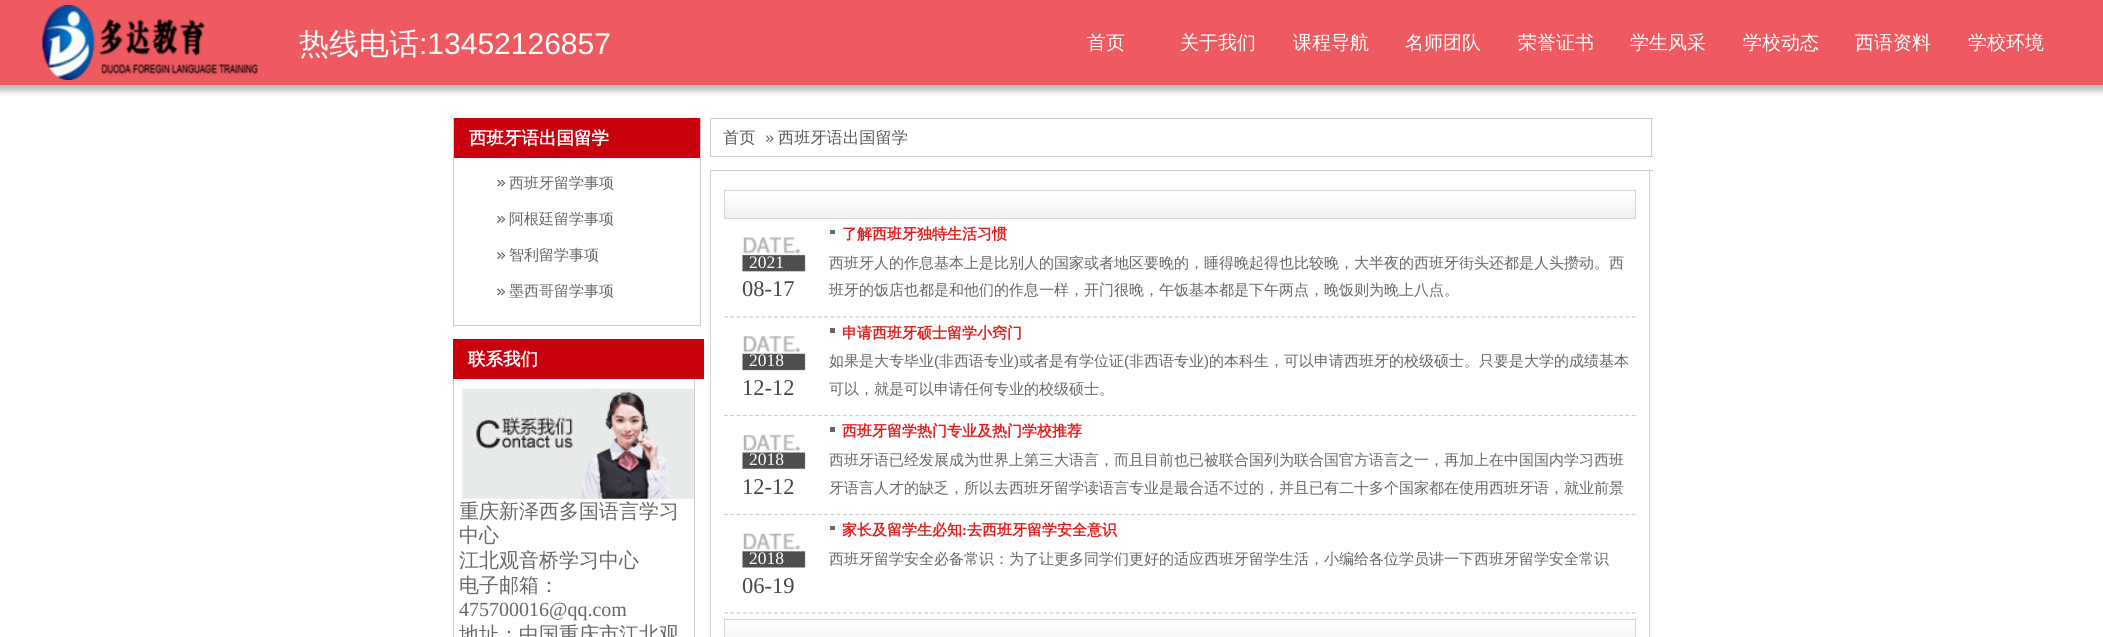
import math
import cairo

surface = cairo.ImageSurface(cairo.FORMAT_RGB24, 2103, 637)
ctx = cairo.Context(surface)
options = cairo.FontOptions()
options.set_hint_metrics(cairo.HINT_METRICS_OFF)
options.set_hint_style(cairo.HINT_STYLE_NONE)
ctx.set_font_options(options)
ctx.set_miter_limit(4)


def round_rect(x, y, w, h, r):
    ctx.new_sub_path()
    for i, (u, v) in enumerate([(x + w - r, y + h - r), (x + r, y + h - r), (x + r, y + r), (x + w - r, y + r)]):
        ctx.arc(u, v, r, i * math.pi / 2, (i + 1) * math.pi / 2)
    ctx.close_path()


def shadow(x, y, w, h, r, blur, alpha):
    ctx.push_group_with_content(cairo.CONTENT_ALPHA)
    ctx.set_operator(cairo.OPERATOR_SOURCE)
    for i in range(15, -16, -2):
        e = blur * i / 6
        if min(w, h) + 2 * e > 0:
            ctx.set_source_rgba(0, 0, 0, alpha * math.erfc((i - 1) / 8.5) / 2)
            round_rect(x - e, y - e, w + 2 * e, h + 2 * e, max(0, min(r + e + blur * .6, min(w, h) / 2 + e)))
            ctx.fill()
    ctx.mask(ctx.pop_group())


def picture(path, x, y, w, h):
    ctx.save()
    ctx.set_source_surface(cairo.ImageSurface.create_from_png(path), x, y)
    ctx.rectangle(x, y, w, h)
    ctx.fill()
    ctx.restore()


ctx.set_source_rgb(1, 1, 1)
ctx.paint()
ctx.set_source_rgb(0.729, 0.729, 0.729)
shadow(-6, -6, 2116, 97, 0, 3, 1)
ctx.set_source_rgb(0.933, 0.353, 0.376)
ctx.rectangle(0, 0, 2103, 85)
ctx.fill()
picture("img1.png", 42, 5, 216, 75)
ctx.select_font_face("WenQuanYi Zen Hei Medium")
ctx.set_font_size(30)
ctx.set_source_rgb(1, 1, 1)
ctx.move_to(299, 54)
ctx.show_text("热线电话")
ctx.select_font_face("Liberation Sans")
ctx.move_to(419, 54)
ctx.show_text(":13452126857")
ctx.select_font_face("WenQuanYi Zen Hei Medium")
ctx.set_font_size(19)
ctx.move_to(1087, 49)
ctx.show_text("首页")
ctx.move_to(1180, 49)
ctx.show_text("关于我们")
ctx.move_to(1293, 49)
ctx.show_text("课程导航")
ctx.move_to(1405, 49)
ctx.show_text("名师团队")
ctx.move_to(1518, 49)
ctx.show_text("荣誉证书")
ctx.move_to(1630, 49)
ctx.show_text("学生风采")
ctx.move_to(1743, 49)
ctx.show_text("学校动态")
ctx.move_to(1855, 49)
ctx.show_text("西语资料")
ctx.move_to(1968, 49)
ctx.show_text("学校环境")
ctx.set_source_rgb(0.8, 0.8, 0.8)
ctx.rectangle(700, 118, 1, 208)
ctx.fill()
ctx.rectangle(453, 325, 248, 1)
ctx.fill()
ctx.rectangle(453, 118, 1, 208)
ctx.fill()
ctx.set_source_rgb(0.788, 0, 0.051)
ctx.rectangle(454, 118, 246, 40)
ctx.fill()
ctx.select_font_face("WenQuanYi Zen Hei", cairo.FONT_SLANT_NORMAL, cairo.FONT_WEIGHT_BOLD)
ctx.set_font_size(17.5)
ctx.set_source_rgb(1, 1, 1)
ctx.move_to(469, 144)
ctx.show_text("西班牙语出国留学")
picture("img2.png", 497, 180, 8, 7)
ctx.select_font_face("WenQuanYi Zen Hei Medium")
ctx.set_font_size(15)
ctx.set_source_rgb(0.4, 0.4, 0.4)
ctx.move_to(509, 188)
ctx.show_text("西班牙留学事项")
picture("img3.png", 497, 216, 8, 7)
ctx.move_to(509, 224)
ctx.show_text("阿根廷留学事项")
picture("img4.png", 497, 252, 8, 7)
ctx.move_to(509, 260)
ctx.show_text("智利留学事项")
picture("img5.png", 497, 288, 8, 7)
ctx.move_to(509, 296)
ctx.show_text("墨西哥留学事项")
ctx.set_source_rgb(0.788, 0, 0.051)
ctx.rectangle(453, 339, 251, 40)
ctx.fill()
ctx.select_font_face("WenQuanYi Zen Hei", cairo.FONT_SLANT_NORMAL, cairo.FONT_WEIGHT_BOLD)
ctx.set_font_size(17.5)
ctx.set_source_rgb(1, 1, 1)
ctx.move_to(468, 365)
ctx.show_text("联系我们")
ctx.set_source_rgb(0.8, 0.8, 0.8)
ctx.rectangle(694, 379, 1, 258)
ctx.fill()
ctx.rectangle(453, 379, 1, 258)
ctx.fill()
picture("img6.png", 462, 388, 232, 111)
ctx.save()
ctx.rectangle(460, 499, 234, 50)
ctx.clip()
ctx.select_font_face("WenQuanYi Zen Hei Medium")
ctx.set_font_size(20)
ctx.set_source_rgb(0.4, 0.4, 0.4)
ctx.move_to(459, 518)
ctx.show_text("重庆新泽西多国语言学习")
ctx.restore()
ctx.select_font_face("WenQuanYi Zen Hei Medium")
ctx.set_font_size(20)
ctx.set_source_rgb(0.4, 0.4, 0.4)
ctx.move_to(459, 542)
ctx.show_text("中心")
ctx.move_to(459, 567)
ctx.show_text("江北观音桥学习中心")
ctx.move_to(459, 592)
ctx.show_text("电子邮箱：")
ctx.select_font_face("Liberation Serif")
ctx.move_to(459, 616)
ctx.show_text("475700016@qq.com")
ctx.select_font_face("WenQuanYi Zen Hei Medium")
ctx.move_to(459, 641)
ctx.show_text("地址：中国重庆市江北观")
ctx.set_source_rgb(0.8, 0.8, 0.8)
ctx.rectangle(710, 118, 943, 1)
ctx.fill()
ctx.rectangle(1651, 119, 1, 37)
ctx.fill()
ctx.rectangle(710, 119, 1, 37)
ctx.fill()
ctx.set_font_size(16.25)
ctx.set_source_rgb(0.345, 0.345, 0.345)
ctx.move_to(723, 143)
ctx.show_text("首页")
ctx.select_font_face("Liberation Sans")
ctx.set_source_rgb(0.4, 0.4, 0.4)
ctx.move_to(765, 143)
ctx.show_text("»")
ctx.select_font_face("WenQuanYi Zen Hei Medium")
ctx.set_source_rgb(0.345, 0.345, 0.345)
ctx.move_to(778, 143)
ctx.show_text("西班牙语出国留学")
ctx.set_source_rgb(0.8, 0.8, 0.8)
ctx.rectangle(710, 156, 943, 1)
ctx.fill()
ctx.rectangle(710, 170, 943, 1)
ctx.fill()
ctx.set_source_rgb(0.835, 0.835, 0.835)
ctx.rectangle(1649, 171, 1, 466)
ctx.fill()
ctx.rectangle(710, 171, 1, 466)
ctx.fill()
gradient = cairo.LinearGradient(1180, 218, 1180, 191)
gradient.add_color_stop_rgba(0, 0.945, 0.945, 0.945, 1)
gradient.add_color_stop_rgba(1, 1, 1, 1, 1)
ctx.set_source(gradient)
ctx.rectangle(725, 196, 910, 22)
ctx.fill()
ctx.rectangle(724.5, 190.5, 911, 28)
ctx.set_source_rgb(0.839, 0.839, 0.839)
ctx.set_line_width(1)
ctx.stroke()
ctx.new_path()
ctx.move_to(724, 317)
ctx.line_to(1636, 317)
ctx.set_source_rgb(0.8, 0.8, 0.8)
ctx.set_line_width(1.2)
ctx.set_dash([3.75, 2.51])
ctx.stroke()
picture("img7.png", 742, 237, 64, 35)
ctx.select_font_face("Liberation Serif")
ctx.set_font_size(17.5)
ctx.set_source_rgb(1, 1, 1)
ctx.move_to(749, 268)
ctx.show_text("2021")
ctx.set_font_size(22.5)
ctx.set_source_rgb(0.275, 0.275, 0.275)
ctx.move_to(742, 296)
ctx.show_text("08-17")
ctx.set_source_rgb(0.4, 0.4, 0.4)
ctx.rectangle(830, 230, 5, 4)
ctx.fill()
ctx.select_font_face("WenQuanYi Zen Hei", cairo.FONT_SLANT_NORMAL, cairo.FONT_WEIGHT_BOLD)
ctx.set_font_size(15)
ctx.set_source_rgb(0.886, 0.118, 0.122)
ctx.move_to(842, 239)
ctx.show_text("了解西班牙独特生活习惯")
ctx.select_font_face("WenQuanYi Zen Hei Medium")
ctx.set_source_rgb(0.4, 0.4, 0.4)
ctx.move_to(829, 268)
ctx.show_text("西班牙人的作息基本上是比别人的国家或者地区要晚的，睡得晚起得也比较晚，大半夜的西班牙街头还都是人头攒动。西")
ctx.move_to(829, 295)
ctx.show_text("班牙的饭店也都是和他们的作息一样，开门很晚，午饭基本都是下午两点，晚饭则为晚上八点。")
ctx.new_path()
ctx.move_to(724, 415.5)
ctx.line_to(1636, 415.5)
ctx.set_source_rgb(0.8, 0.8, 0.8)
ctx.stroke()
picture("img8.png", 742, 336, 64, 35)
ctx.select_font_face("Liberation Serif")
ctx.set_font_size(17.5)
ctx.set_source_rgb(1, 1, 1)
ctx.move_to(749, 366)
ctx.show_text("2018")
ctx.set_font_size(22.5)
ctx.set_source_rgb(0.275, 0.275, 0.275)
ctx.move_to(742, 395)
ctx.show_text("12-12")
ctx.set_source_rgb(0.4, 0.4, 0.4)
ctx.rectangle(830, 328, 5, 5)
ctx.fill()
ctx.select_font_face("WenQuanYi Zen Hei", cairo.FONT_SLANT_NORMAL, cairo.FONT_WEIGHT_BOLD)
ctx.set_font_size(15)
ctx.set_source_rgb(0.886, 0.118, 0.122)
ctx.move_to(842, 338)
ctx.show_text("申请西班牙硕士留学小窍门")
ctx.select_font_face("WenQuanYi Zen Hei Medium")
ctx.set_source_rgb(0.4, 0.4, 0.4)
ctx.move_to(829, 366)
ctx.show_text("如果是大专毕业")
ctx.select_font_face("Liberation Sans")
ctx.move_to(934, 366)
ctx.show_text("(")
ctx.select_font_face("WenQuanYi Zen Hei Medium")
ctx.move_to(939, 366)
ctx.show_text("非西语专业")
ctx.select_font_face("Liberation Sans")
ctx.move_to(1014, 366)
ctx.show_text(")")
ctx.select_font_face("WenQuanYi Zen Hei Medium")
ctx.move_to(1019, 366)
ctx.show_text("或者是有学位证")
ctx.select_font_face("Liberation Sans")
ctx.move_to(1124, 366)
ctx.show_text("(")
ctx.select_font_face("WenQuanYi Zen Hei Medium")
ctx.move_to(1129, 366)
ctx.show_text("非西语专业")
ctx.select_font_face("Liberation Sans")
ctx.move_to(1204, 366)
ctx.show_text(")")
ctx.select_font_face("WenQuanYi Zen Hei Medium")
ctx.move_to(1209, 366)
ctx.show_text("的本科生，可以申请西班牙的校级硕士。只要是大学的成绩基本")
ctx.move_to(829, 394)
ctx.show_text("可以，就是可以申请任何专业的校级硕士。")
ctx.new_path()
ctx.move_to(724, 514.5)
ctx.line_to(1636, 514.5)
ctx.set_source_rgb(0.8, 0.8, 0.8)
ctx.stroke()
picture("img9.png", 742, 434, 64, 35)
ctx.select_font_face("Liberation Serif")
ctx.set_font_size(17.5)
ctx.set_source_rgb(1, 1, 1)
ctx.move_to(749, 465)
ctx.show_text("2018")
ctx.set_font_size(22.5)
ctx.set_source_rgb(0.275, 0.275, 0.275)
ctx.move_to(742, 494)
ctx.show_text("12-12")
ctx.set_source_rgb(0.4, 0.4, 0.4)
ctx.rectangle(830, 427, 5, 5)
ctx.fill()
ctx.select_font_face("WenQuanYi Zen Hei", cairo.FONT_SLANT_NORMAL, cairo.FONT_WEIGHT_BOLD)
ctx.set_font_size(15)
ctx.set_source_rgb(0.886, 0.118, 0.122)
ctx.move_to(842, 436)
ctx.show_text("西班牙留学热门专业及热门学校推荐")
ctx.select_font_face("WenQuanYi Zen Hei Medium")
ctx.set_source_rgb(0.4, 0.4, 0.4)
ctx.move_to(829, 465)
ctx.show_text("西班牙语已经发展成为世界上第三大语言，而且目前也已被联合国列为联合国官方语言之一，再加上在中国国内学习西班")
ctx.move_to(829, 493)
ctx.show_text("牙语言人才的缺乏，所以去西班牙留学读语言专业是最合适不过的，并且已有二十多个国家都在使用西班牙语，就业前景")
ctx.new_path()
ctx.move_to(724, 613)
ctx.line_to(1636, 613)
ctx.set_source_rgb(0.8, 0.8, 0.8)
ctx.stroke()
ctx.set_source_rgb(0.4, 0.4, 0.4)
ctx.rectangle(830, 526, 5, 4)
ctx.fill()
ctx.select_font_face("WenQuanYi Zen Hei", cairo.FONT_SLANT_NORMAL, cairo.FONT_WEIGHT_BOLD)
ctx.set_source_rgb(0.886, 0.118, 0.122)
ctx.move_to(842, 535)
ctx.show_text("家长及留学生必知")
ctx.select_font_face("Liberation Serif", cairo.FONT_SLANT_NORMAL, cairo.FONT_WEIGHT_BOLD)
ctx.move_to(962, 535)
ctx.show_text(":")
ctx.select_font_face("WenQuanYi Zen Hei", cairo.FONT_SLANT_NORMAL, cairo.FONT_WEIGHT_BOLD)
ctx.move_to(967, 535)
ctx.show_text("去西班牙留学安全意识")
ctx.select_font_face("WenQuanYi Zen Hei Medium")
ctx.set_source_rgb(0.4, 0.4, 0.4)
ctx.move_to(829, 564)
ctx.show_text("西班牙留学安全必备常识：为了让更多同学们更好的适应西班牙留学生活，小编给各位学员讲一下西班牙留学安全常识")
picture("img10.png", 742, 533, 64, 35)
ctx.select_font_face("Liberation Serif")
ctx.set_font_size(17.5)
ctx.set_source_rgb(1, 1, 1)
ctx.move_to(749, 564)
ctx.show_text("2018")
ctx.set_font_size(22.5)
ctx.set_source_rgb(0.275, 0.275, 0.275)
ctx.move_to(742, 593)
ctx.show_text("06-19")
gradient = cairo.LinearGradient(1180, 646, 1180, 620)
gradient.add_color_stop_rgba(0, 0.945, 0.945, 0.945, 1)
gradient.add_color_stop_rgba(1, 1, 1, 1, 1)
ctx.set_source(gradient)
ctx.rectangle(725, 625, 910, 12)
ctx.fill()
ctx.rectangle(724.5, 619.5, 911, 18)
ctx.set_source_rgb(0.839, 0.839, 0.839)
ctx.set_line_width(1)
ctx.set_dash([])
ctx.stroke()
surface.write_to_png("page.png")
